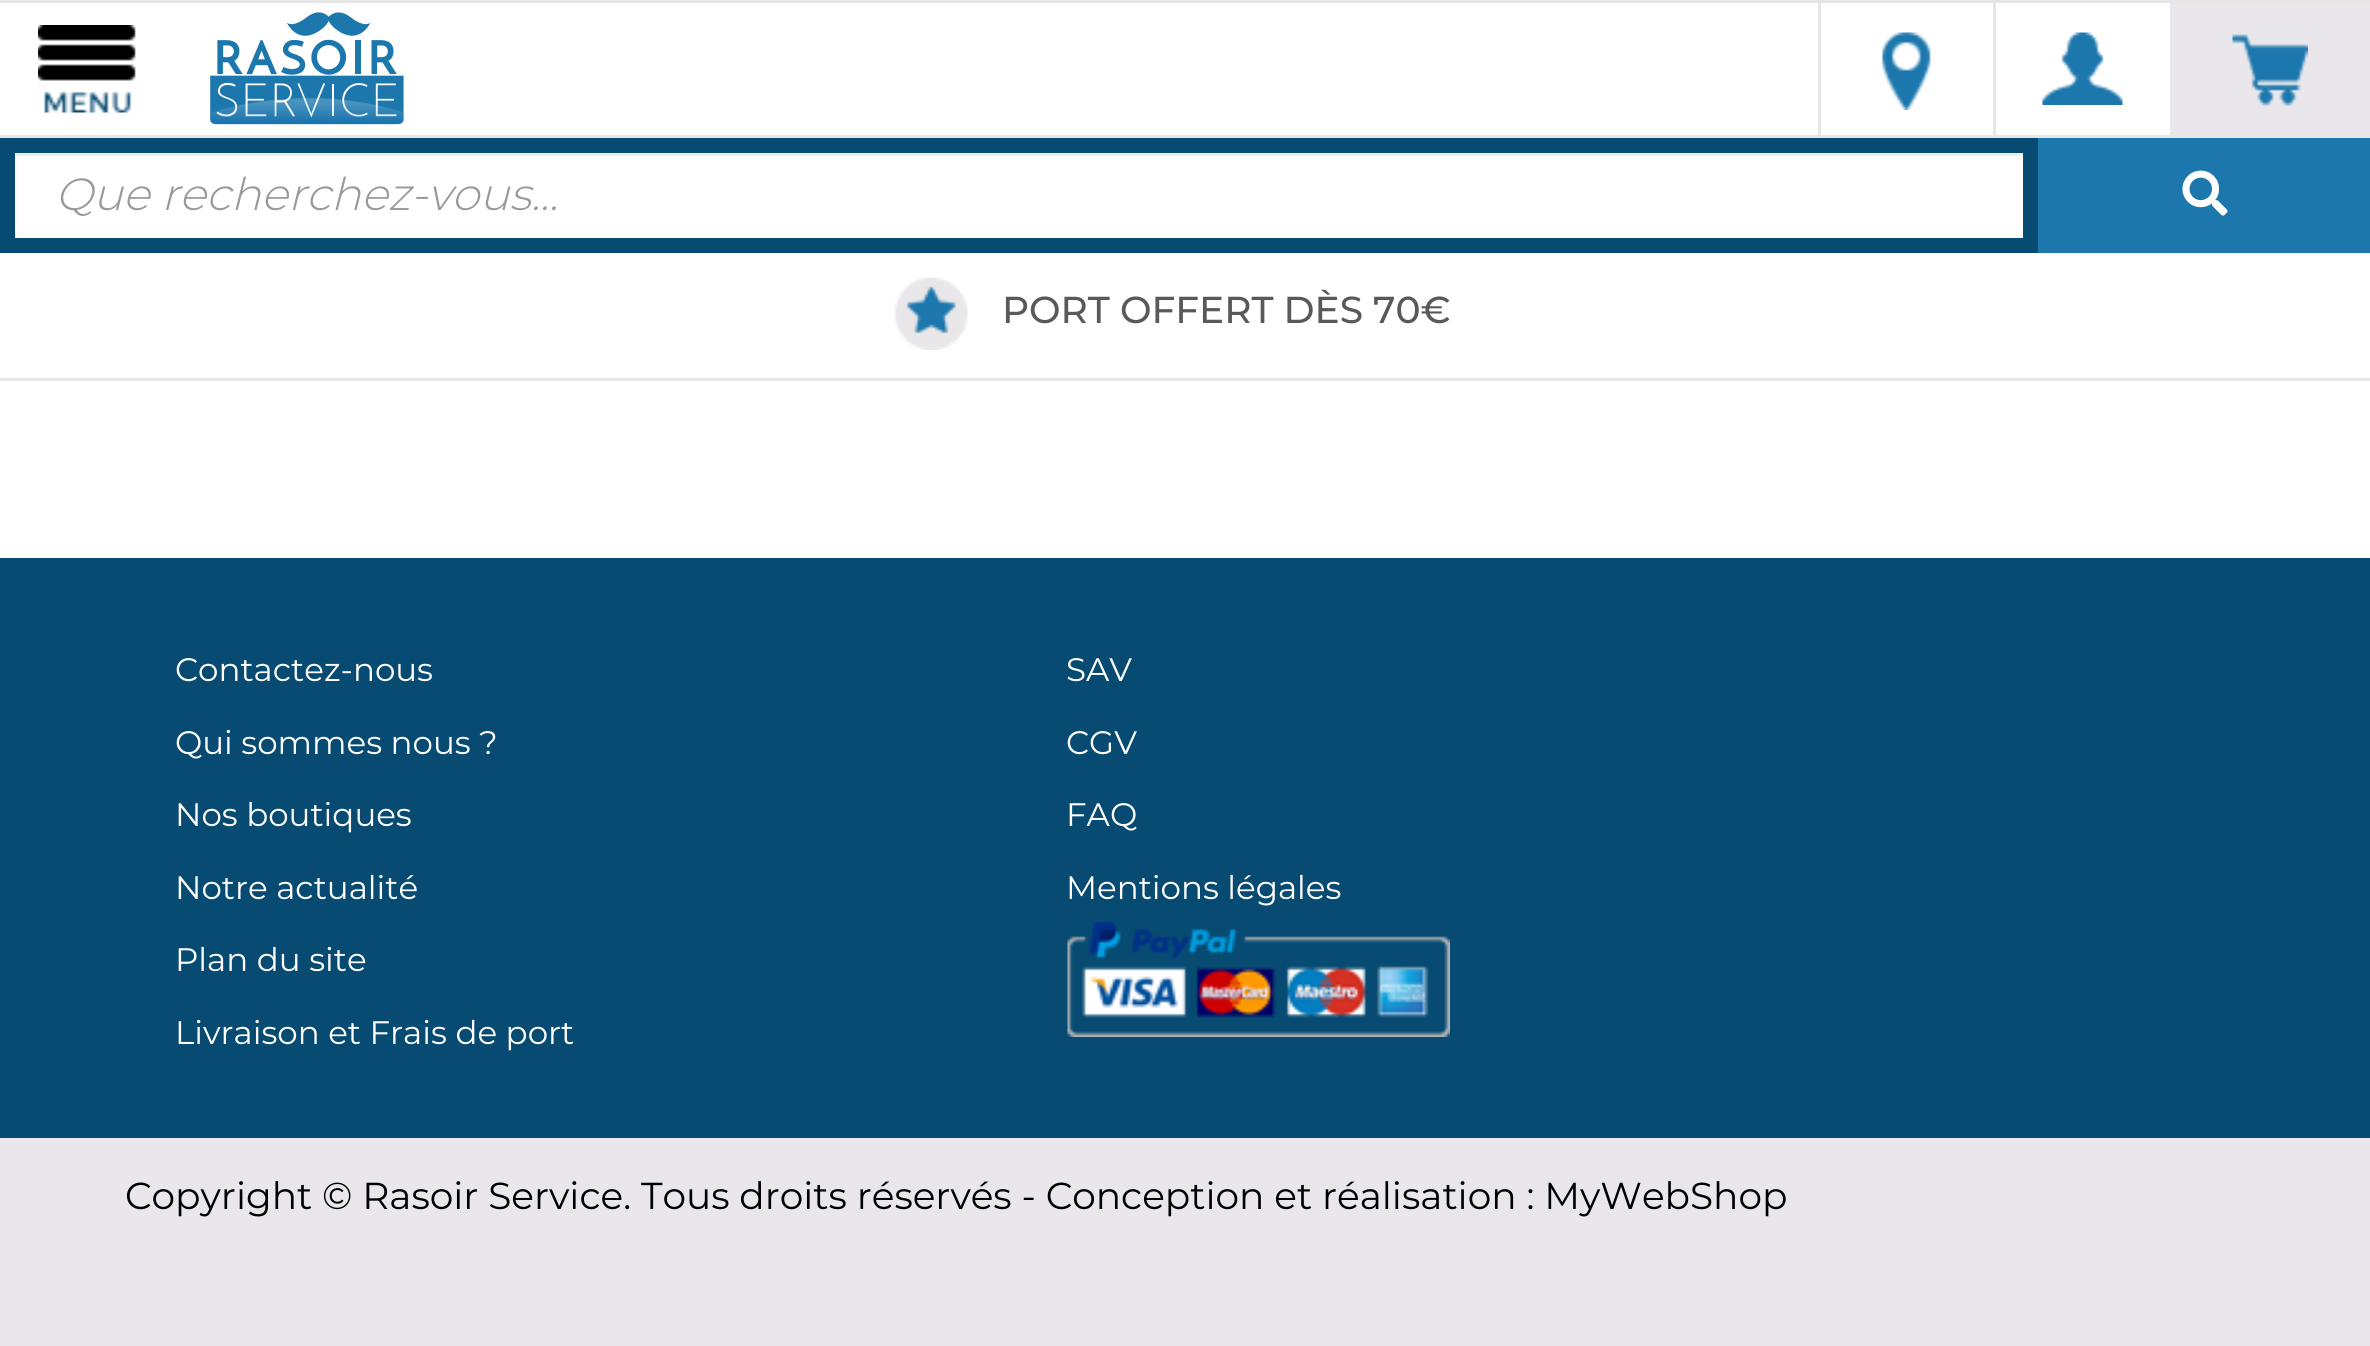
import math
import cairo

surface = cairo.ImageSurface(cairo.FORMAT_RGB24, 2370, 1346)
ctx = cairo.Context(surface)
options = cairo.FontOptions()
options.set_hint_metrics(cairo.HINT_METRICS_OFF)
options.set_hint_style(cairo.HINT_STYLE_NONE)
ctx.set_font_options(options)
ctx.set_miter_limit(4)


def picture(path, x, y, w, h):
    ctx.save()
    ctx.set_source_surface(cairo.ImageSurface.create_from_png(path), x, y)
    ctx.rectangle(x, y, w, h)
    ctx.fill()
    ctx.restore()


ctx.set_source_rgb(1, 1, 1)
ctx.paint()
ctx.set_source_rgb(0.902, 0.902, 0.902)
ctx.rectangle(0, 0, 2370, 3)
ctx.fill()
ctx.rectangle(0, 135, 2370, 3)
ctx.fill()
picture("img1.png", 38, 25, 98, 88)
picture("img2.png", 210, 12, 194, 113)
ctx.rectangle(1818, 3, 3, 132)
ctx.fill()
picture("img3.png", 1882, 32, 49, 78)
ctx.rectangle(1993, 3, 3, 132)
ctx.fill()
picture("img4.png", 2042, 32, 81, 73)
ctx.set_source_rgb(0.914, 0.906, 0.918)
ctx.rectangle(2170, 3, 200, 132)
ctx.fill()
picture("img5.png", 2232, 34, 76, 72)
ctx.set_source_rgb(0.925, 0.925, 0.925)
ctx.rectangle(15, 153, 2008, 3)
ctx.fill()
ctx.rectangle(7.5, 145.5, 2023, 100)
ctx.set_source_rgb(0.031, 0.294, 0.447)
ctx.set_line_width(15)
ctx.stroke()
ctx.select_font_face("Montserrat Light", cairo.FONT_SLANT_ITALIC)
ctx.set_font_size(45)
ctx.set_source_rgb(0.6, 0.6, 0.6)
ctx.move_to(55, 210)
ctx.show_text("Que recherchez-vous...")
ctx.set_source_rgb(0.11, 0.467, 0.675)
ctx.rectangle(2038, 138, 332, 115)
ctx.fill()
picture("img6.png", 2182, 170, 46, 46)
ctx.set_source_rgb(0.902, 0.902, 0.902)
ctx.rectangle(0, 378, 2370, 3)
ctx.fill()
picture("img7.png", 894, 277, 74, 73)
ctx.select_font_face("Montserrat Medium")
ctx.set_font_size(37.5)
ctx.set_source_rgb(0.349, 0.349, 0.349)
ctx.move_to(1002, 323)
ctx.show_text("PORT OFFERT DÈS 70€")
ctx.set_source_rgb(0.031, 0.294, 0.447)
ctx.rectangle(0, 558, 2370, 580)
ctx.fill()
ctx.select_font_face("Montserrat")
ctx.set_font_size(32.5)
ctx.set_source_rgb(1, 1, 1)
ctx.move_to(175, 681)
ctx.show_text("Contactez-nous")
ctx.move_to(175, 754)
ctx.show_text("Qui sommes nous ?")
ctx.move_to(175, 826)
ctx.show_text("Nos boutiques")
ctx.move_to(175, 899)
ctx.show_text("Notre actualité")
ctx.move_to(175, 971)
ctx.show_text("Plan du site")
ctx.move_to(175, 1044)
ctx.show_text("Livraison et Frais de port")
ctx.move_to(1066, 681)
ctx.show_text("SAV")
ctx.move_to(1066, 754)
ctx.show_text("CGV")
ctx.move_to(1066, 826)
ctx.show_text("FAQ")
ctx.move_to(1066, 899)
ctx.show_text("Mentions légales")
picture("img8.png", 1067, 922, 383, 115)
ctx.set_source_rgb(0.914, 0.906, 0.918)
ctx.rectangle(0, 1138, 2370, 208)
ctx.fill()
ctx.set_font_size(37.5)
ctx.set_source_rgb(0, 0, 0)
ctx.move_to(125, 1209)
ctx.show_text("Copyright © Rasoir Service. Tous droits réservés - Conception et réalisation : MyWebShop")
surface.write_to_png("page.png")
